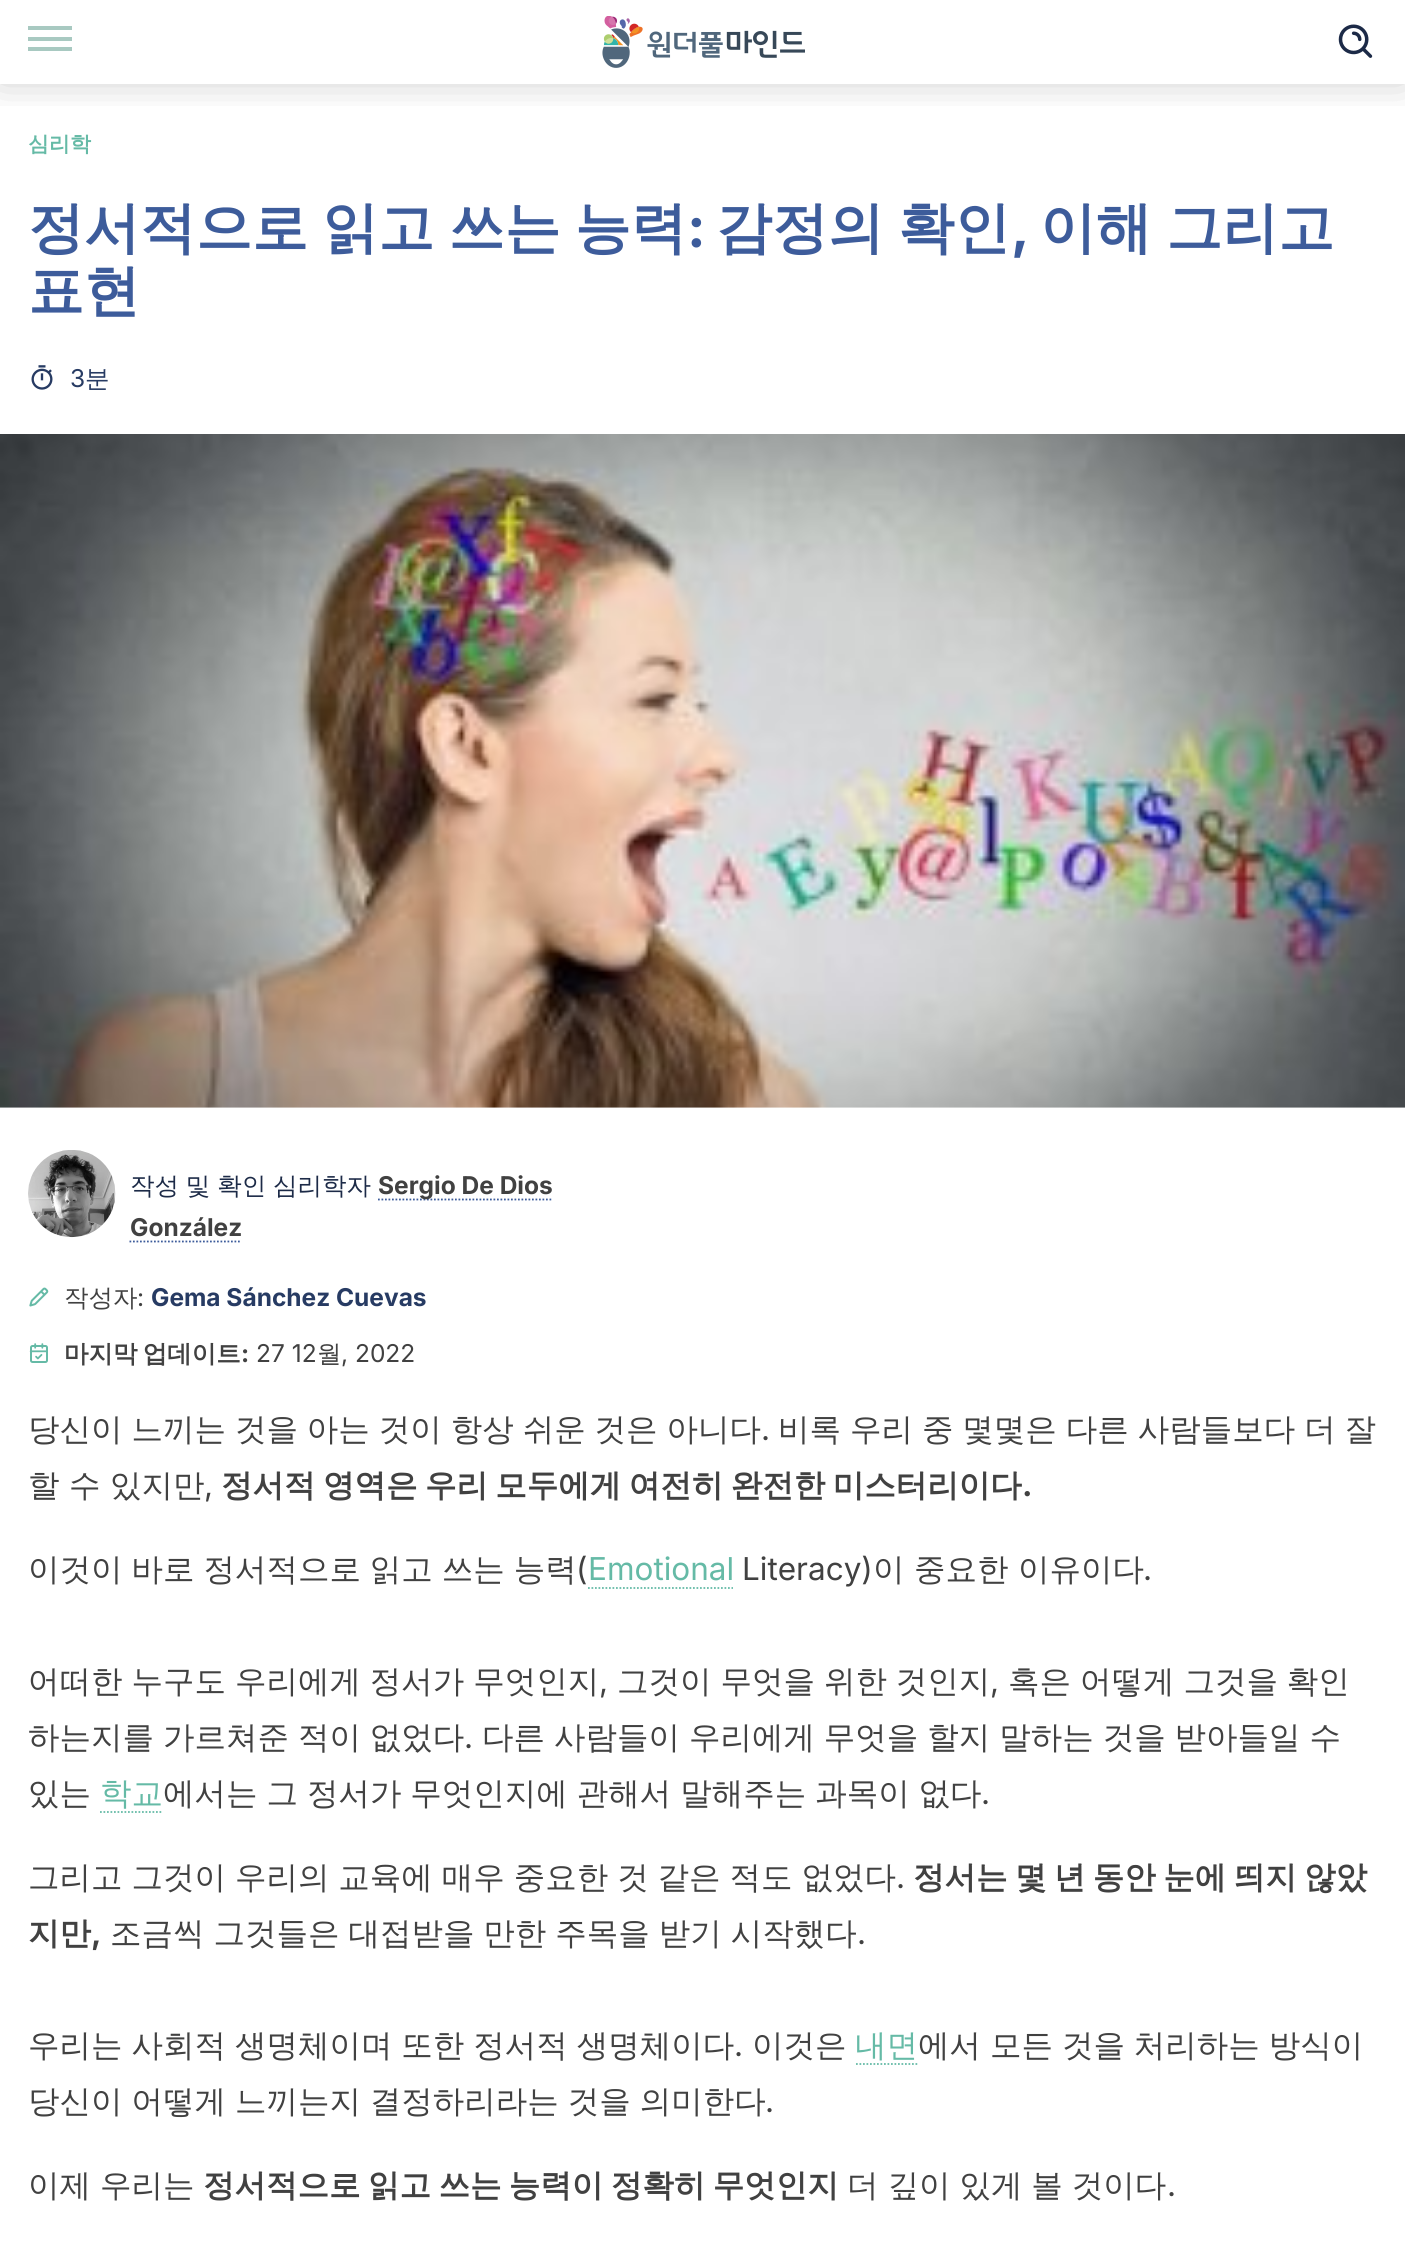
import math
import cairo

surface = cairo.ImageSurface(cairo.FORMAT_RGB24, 1405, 2264)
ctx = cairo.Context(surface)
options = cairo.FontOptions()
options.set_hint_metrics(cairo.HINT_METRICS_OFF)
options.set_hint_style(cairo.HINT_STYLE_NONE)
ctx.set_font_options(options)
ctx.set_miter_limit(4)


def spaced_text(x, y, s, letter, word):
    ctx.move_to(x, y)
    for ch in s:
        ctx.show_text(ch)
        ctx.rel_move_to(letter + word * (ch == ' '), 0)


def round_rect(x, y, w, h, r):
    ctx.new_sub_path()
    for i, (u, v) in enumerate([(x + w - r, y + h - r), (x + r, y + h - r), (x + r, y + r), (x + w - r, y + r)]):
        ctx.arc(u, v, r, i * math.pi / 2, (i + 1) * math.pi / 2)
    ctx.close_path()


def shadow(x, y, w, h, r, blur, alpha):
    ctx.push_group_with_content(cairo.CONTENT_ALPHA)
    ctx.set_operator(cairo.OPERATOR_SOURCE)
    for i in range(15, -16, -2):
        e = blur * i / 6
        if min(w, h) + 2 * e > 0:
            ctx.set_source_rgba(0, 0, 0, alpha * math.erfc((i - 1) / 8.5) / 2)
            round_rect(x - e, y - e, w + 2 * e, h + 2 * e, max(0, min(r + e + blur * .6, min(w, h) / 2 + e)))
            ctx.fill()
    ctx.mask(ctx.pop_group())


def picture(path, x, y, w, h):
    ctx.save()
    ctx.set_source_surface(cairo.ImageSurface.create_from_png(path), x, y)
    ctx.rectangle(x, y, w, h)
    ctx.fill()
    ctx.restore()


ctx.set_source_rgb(1, 1, 1)
ctx.paint()
ctx.save()
ctx.rectangle(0, 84, 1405, 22)
ctx.clip()
ctx.set_source_rgb(0, 0, 0)
shadow(0, -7, 1405, 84, 0, 21, 0.25)
ctx.restore()
ctx.set_source_rgb(0.659, 0.788, 0.757)
ctx.rectangle(28, 26, 44, 4)
ctx.fill()
ctx.rectangle(28, 37, 44, 4)
ctx.fill()
ctx.rectangle(28, 47, 44, 4)
ctx.fill()
picture("img1.png", 602, 16, 203, 52)
picture("img2.png", 1338, 24, 35, 34)
ctx.select_font_face("WenQuanYi Zen Hei", cairo.FONT_SLANT_NORMAL, cairo.FONT_WEIGHT_BOLD)
ctx.set_font_size(21)
ctx.set_source_rgb(0.396, 0.729, 0.651)
ctx.move_to(28, 151)
ctx.show_text("심리학")
ctx.set_font_size(56)
ctx.set_source_rgb(0.239, 0.361, 0.608)
spaced_text(28, 247, "정서적으로 읽고 쓰는 능력", 0, -2.5)
ctx.select_font_face("Inter", cairo.FONT_SLANT_NORMAL, cairo.FONT_WEIGHT_BOLD)
ctx.move_to(687, 247)
ctx.show_text(":")
ctx.select_font_face("WenQuanYi Zen Hei", cairo.FONT_SLANT_NORMAL, cairo.FONT_WEIGHT_BOLD)
spaced_text(716, 247, "감정의 확인", 0, -2.5)
ctx.select_font_face("Inter", cairo.FONT_SLANT_NORMAL, cairo.FONT_WEIGHT_BOLD)
ctx.move_to(1011, 247)
ctx.show_text(",")
ctx.select_font_face("WenQuanYi Zen Hei", cairo.FONT_SLANT_NORMAL, cairo.FONT_WEIGHT_BOLD)
spaced_text(1040, 247, "이해 그리고", 0, -2.5)
ctx.move_to(28, 310)
ctx.show_text("표현")
picture("img3.png", 31, 365, 22, 25)
ctx.select_font_face("Inter")
ctx.set_font_size(24.5)
ctx.set_source_rgb(0.153, 0.231, 0.388)
ctx.move_to(70, 387)
ctx.show_text("3")
ctx.select_font_face("WenQuanYi Zen Hei Medium")
ctx.move_to(85, 387)
ctx.show_text("분")
picture("img4.png", 0, 434, 1405, 674)
picture("img5.png", 28, 1150, 88, 88)
ctx.set_source_rgb(0.11, 0.165, 0.278)
spaced_text(130, 1194, "작성 및 확인 심리학자", 0, -0.5)
ctx.new_path()
ctx.move_to(378, 1199.5)
ctx.line_to(553, 1199.5)
ctx.set_source_rgb(0.239, 0.361, 0.608)
ctx.set_line_width(1.8)
ctx.set_dash([1.75, 1.75])
ctx.stroke()
ctx.select_font_face("Inter", cairo.FONT_SLANT_NORMAL, cairo.FONT_WEIGHT_BOLD)
ctx.set_source_rgb(0.255, 0.255, 0.255)
ctx.move_to(378, 1194)
ctx.show_text("Sergio De Dios")
ctx.move_to(130, 1236)
ctx.show_text("González")
ctx.new_path()
ctx.move_to(129.5, 1241.5)
ctx.line_to(241.5, 1241.5)
ctx.set_source_rgb(0.239, 0.361, 0.608)
ctx.stroke()
picture("img6.png", 29, 1287, 20, 20)
ctx.select_font_face("WenQuanYi Zen Hei Medium")
ctx.set_source_rgb(0.255, 0.255, 0.255)
ctx.move_to(64, 1306)
ctx.show_text("작성자")
ctx.select_font_face("Inter")
ctx.move_to(137, 1306)
ctx.show_text(":")
ctx.select_font_face("Inter", cairo.FONT_SLANT_NORMAL, cairo.FONT_WEIGHT_BOLD)
ctx.set_source_rgb(0.153, 0.231, 0.388)
ctx.move_to(151, 1306)
ctx.show_text("Gema Sánchez Cuevas")
picture("img7.png", 29, 1343, 19, 20)
ctx.select_font_face("WenQuanYi Zen Hei", cairo.FONT_SLANT_NORMAL, cairo.FONT_WEIGHT_BOLD)
ctx.set_source_rgb(0.255, 0.255, 0.255)
spaced_text(64, 1362, "마지막 업데이트", 0, -2)
ctx.select_font_face("Inter", cairo.FONT_SLANT_NORMAL, cairo.FONT_WEIGHT_BOLD)
ctx.move_to(241, 1362)
ctx.show_text(":")
ctx.select_font_face("Inter")
ctx.move_to(256, 1362)
ctx.show_text("27 12")
ctx.select_font_face("WenQuanYi Zen Hei Medium")
ctx.move_to(317, 1362)
ctx.show_text("월")
ctx.select_font_face("Inter")
ctx.move_to(341, 1362)
ctx.show_text(", 2022")
ctx.select_font_face("WenQuanYi Zen Hei Medium")
ctx.set_font_size(31.5)
spaced_text(28, 1440, "당신이 느끼는 것을 아는 것이 항상 쉬운 것은 아니다", 0, -0.5)
ctx.select_font_face("Inter")
ctx.move_to(761, 1440)
ctx.show_text(".")
ctx.select_font_face("WenQuanYi Zen Hei Medium")
spaced_text(778, 1440, "비록 우리 중 몇몇은 다른 사람들보다 더 잘", 0, -0.5)
ctx.move_to(28, 1496)
ctx.show_text("할 수 있지만")
ctx.select_font_face("Inter")
ctx.move_to(204, 1496)
ctx.show_text(",")
ctx.select_font_face("WenQuanYi Zen Hei", cairo.FONT_SLANT_NORMAL, cairo.FONT_WEIGHT_BOLD)
spaced_text(221, 1496, "정서적 영역은 우리 모두에게 여전히 완전한 미스터리이다", 0, -2)
ctx.select_font_face("Inter", cairo.FONT_SLANT_NORMAL, cairo.FONT_WEIGHT_BOLD)
ctx.move_to(1022, 1496)
ctx.show_text(".")
ctx.select_font_face("WenQuanYi Zen Hei Medium")
spaced_text(28, 1580, "이것이 바로 정서적으로 읽고 쓰는 능력", 0, -0.5)
ctx.select_font_face("Inter")
ctx.move_to(576, 1580)
ctx.show_text("(")
ctx.set_source_rgb(0.396, 0.729, 0.651)
ctx.move_to(588, 1580)
ctx.show_text("Emotional")
ctx.new_path()
ctx.move_to(588, 1588)
ctx.line_to(733, 1588)
ctx.stroke()
ctx.set_source_rgb(0.255, 0.255, 0.255)
ctx.move_to(742, 1580)
ctx.show_text("Literacy)")
ctx.select_font_face("WenQuanYi Zen Hei Medium")
ctx.move_to(873, 1580)
ctx.show_text("이 중요한 이유이다")
ctx.select_font_face("Inter")
ctx.move_to(1143, 1580)
ctx.show_text(".")
ctx.select_font_face("WenQuanYi Zen Hei Medium")
spaced_text(28, 1692, "어떠한 누구도 우리에게 정서가 무엇인지", 0, -0.5)
ctx.select_font_face("Inter")
ctx.move_to(599, 1692)
ctx.show_text(",")
ctx.select_font_face("WenQuanYi Zen Hei Medium")
spaced_text(617, 1692, "그것이 무엇을 위한 것인지", 0, -0.5)
ctx.select_font_face("Inter")
ctx.move_to(990, 1692)
ctx.show_text(",")
ctx.select_font_face("WenQuanYi Zen Hei Medium")
spaced_text(1008, 1692, "혹은 어떻게 그것을 확인", 0, -0.5)
spaced_text(28, 1748, "하는지를 가르쳐준 적이 없었다", 0, -0.5)
ctx.select_font_face("Inter")
ctx.move_to(464, 1748)
ctx.show_text(".")
ctx.select_font_face("WenQuanYi Zen Hei Medium")
spaced_text(482, 1748, "다른 사람들이 우리에게 무엇을 할지 말하는 것을 받아들일 수", 0, -0.5)
ctx.move_to(28, 1804)
ctx.show_text("있는")
ctx.set_source_rgb(0.396, 0.729, 0.651)
ctx.move_to(100, 1804)
ctx.show_text("학교")
ctx.new_path()
ctx.move_to(100, 1812)
ctx.line_to(163, 1812)
ctx.stroke()
ctx.set_source_rgb(0.255, 0.255, 0.255)
spaced_text(163, 1804, "에서는 그 정서가 무엇인지에 관해서 말해주는 과목이 없다", 0, -0.5)
ctx.select_font_face("Inter")
ctx.move_to(981, 1804)
ctx.show_text(".")
ctx.select_font_face("WenQuanYi Zen Hei Medium")
spaced_text(28, 1888, "그리고 그것이 우리의 교육에 매우 중요한 것 같은 적도 없었다", 0, -0.5)
ctx.select_font_face("Inter")
ctx.move_to(896, 1888)
ctx.show_text(".")
ctx.select_font_face("WenQuanYi Zen Hei", cairo.FONT_SLANT_NORMAL, cairo.FONT_WEIGHT_BOLD)
spaced_text(913, 1888, "정서는 몇 년 동안 눈에 띄지 않았", 0, -2)
ctx.move_to(28, 1944)
ctx.show_text("지만")
ctx.select_font_face("Inter", cairo.FONT_SLANT_NORMAL, cairo.FONT_WEIGHT_BOLD)
ctx.move_to(91, 1944)
ctx.show_text(",")
ctx.select_font_face("WenQuanYi Zen Hei Medium")
spaced_text(110, 1944, "조금씩 그것들은 대접받을 만한 주목을 받기 시작했다", 0, -0.5)
ctx.select_font_face("Inter")
ctx.move_to(857, 1944)
ctx.show_text(".")
ctx.select_font_face("WenQuanYi Zen Hei Medium")
spaced_text(28, 2056, "우리는 사회적 생명체이며 또한 정서적 생명체이다", 0, -0.5)
ctx.select_font_face("Inter")
ctx.move_to(734, 2056)
ctx.show_text(".")
ctx.select_font_face("WenQuanYi Zen Hei Medium")
ctx.move_to(752, 2056)
ctx.show_text("이것은")
ctx.set_source_rgb(0.396, 0.729, 0.651)
ctx.move_to(855, 2056)
ctx.show_text("내면")
ctx.new_path()
ctx.move_to(856, 2064)
ctx.line_to(919, 2064)
ctx.stroke()
ctx.set_source_rgb(0.255, 0.255, 0.255)
spaced_text(918, 2056, "에서 모든 것을 처리하는 방식이", 0, -0.5)
spaced_text(28, 2112, "당신이 어떻게 느끼는지 결정하리라는 것을 의미한다", 0, -0.5)
ctx.select_font_face("Inter")
ctx.move_to(765, 2112)
ctx.show_text(".")
ctx.select_font_face("WenQuanYi Zen Hei Medium")
spaced_text(28, 2196, "이제 우리는", 0, -0.5)
ctx.select_font_face("WenQuanYi Zen Hei", cairo.FONT_SLANT_NORMAL, cairo.FONT_WEIGHT_BOLD)
spaced_text(203, 2196, "정서적으로 읽고 쓰는 능력이 정확히 무엇인지", 0, -2)
ctx.select_font_face("WenQuanYi Zen Hei Medium")
spaced_text(847, 2196, "더 깊이 있게 볼 것이다", 0, -0.5)
ctx.select_font_face("Inter")
ctx.move_to(1167, 2196)
ctx.show_text(".")
surface.write_to_png("page.png")
